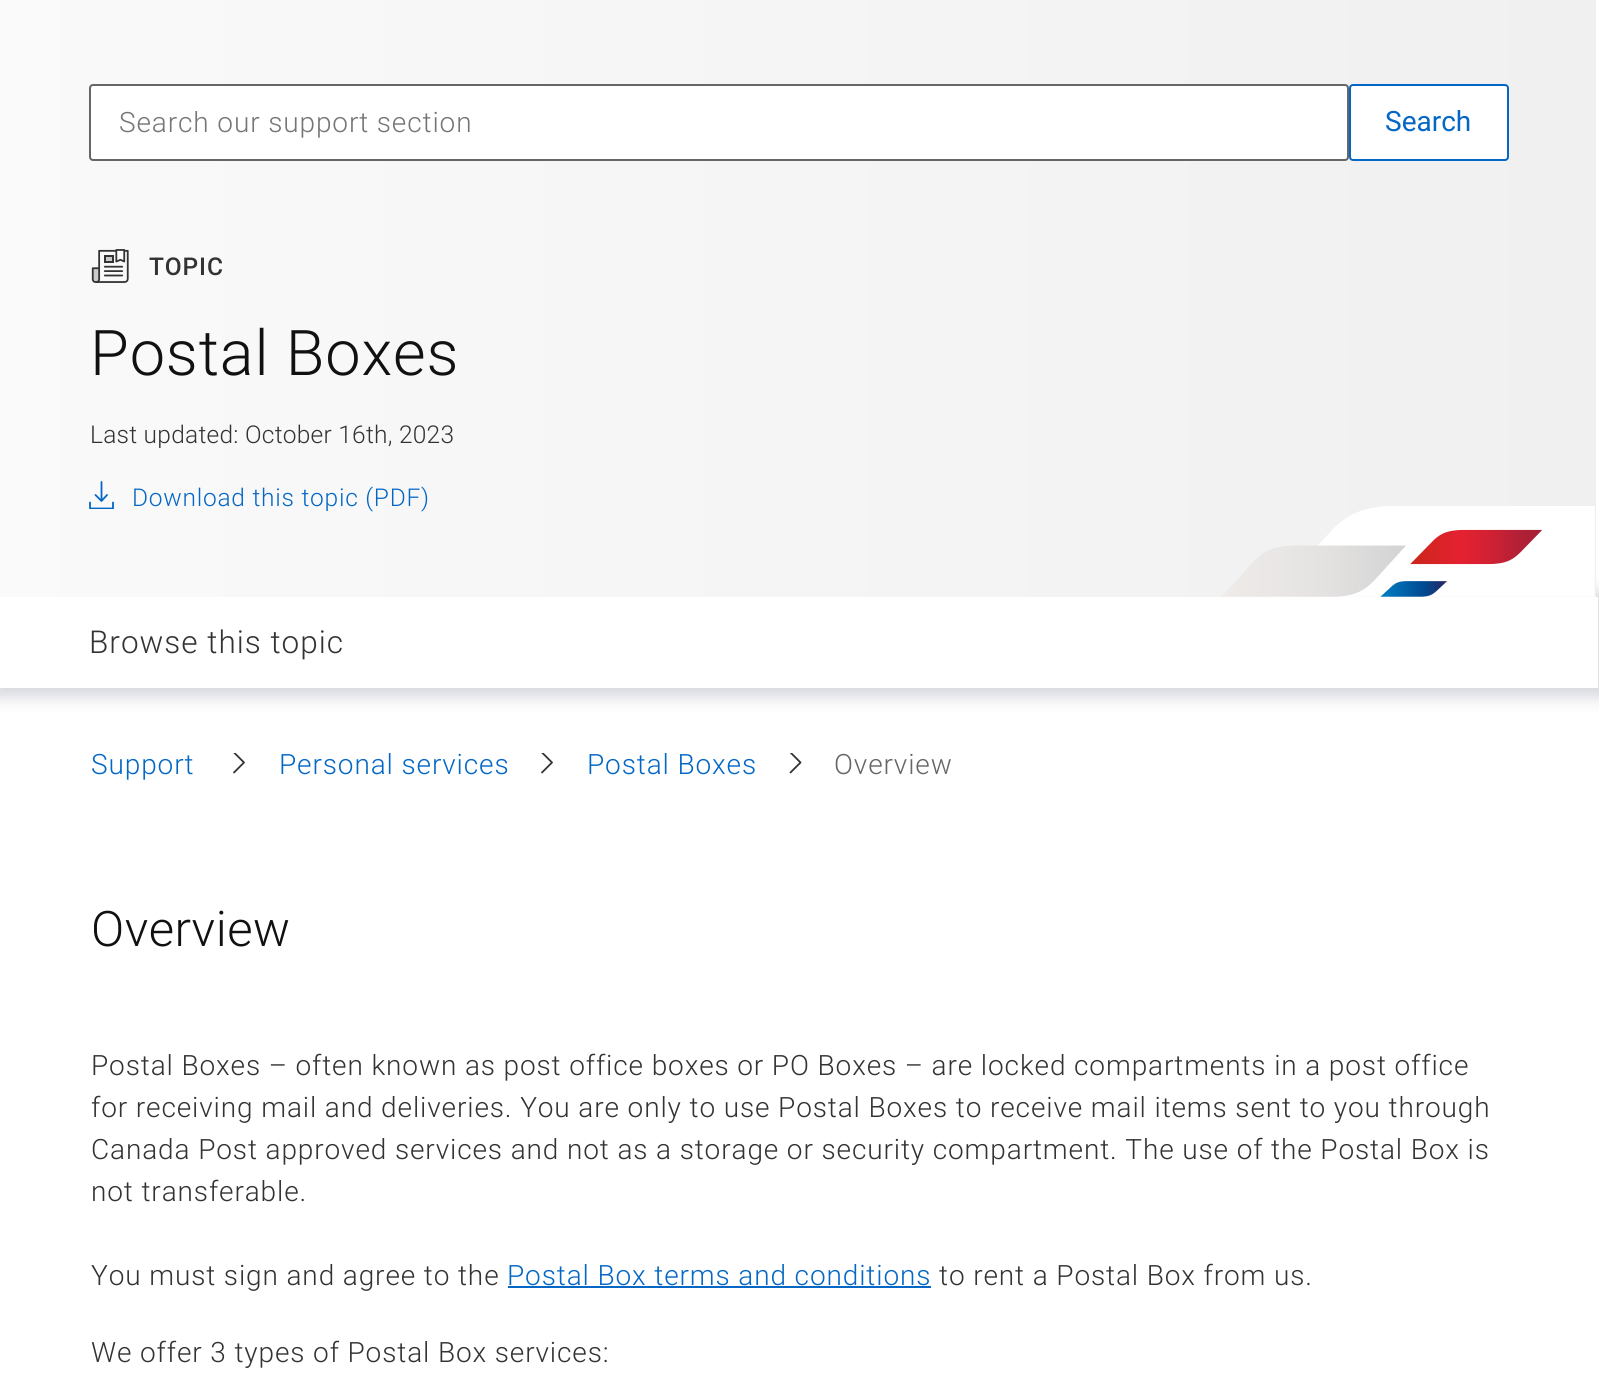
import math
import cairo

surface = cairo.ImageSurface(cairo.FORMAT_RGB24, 1599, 1391)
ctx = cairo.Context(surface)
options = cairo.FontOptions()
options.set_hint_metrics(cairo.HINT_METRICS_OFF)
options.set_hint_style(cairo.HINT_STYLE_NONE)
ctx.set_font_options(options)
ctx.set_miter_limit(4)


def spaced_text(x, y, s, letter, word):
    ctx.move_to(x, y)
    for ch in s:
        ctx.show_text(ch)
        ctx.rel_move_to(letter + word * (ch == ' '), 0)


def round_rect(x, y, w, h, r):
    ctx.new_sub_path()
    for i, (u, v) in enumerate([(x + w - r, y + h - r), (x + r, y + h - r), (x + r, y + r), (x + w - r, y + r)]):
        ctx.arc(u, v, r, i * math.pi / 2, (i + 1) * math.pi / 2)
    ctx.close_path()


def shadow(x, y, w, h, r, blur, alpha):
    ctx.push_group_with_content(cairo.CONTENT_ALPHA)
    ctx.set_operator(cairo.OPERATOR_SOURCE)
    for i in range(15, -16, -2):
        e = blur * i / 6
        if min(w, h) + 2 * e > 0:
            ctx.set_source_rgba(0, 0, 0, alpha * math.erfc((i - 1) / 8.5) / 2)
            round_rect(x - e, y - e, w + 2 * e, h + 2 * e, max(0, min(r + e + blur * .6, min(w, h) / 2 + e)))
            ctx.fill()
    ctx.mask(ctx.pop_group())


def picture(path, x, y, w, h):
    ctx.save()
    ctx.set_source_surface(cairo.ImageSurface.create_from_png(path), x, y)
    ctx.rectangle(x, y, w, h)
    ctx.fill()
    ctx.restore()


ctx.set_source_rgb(1, 1, 1)
ctx.paint()
ctx.set_source_rgb(0.839, 0.843, 0.867)
shadow(-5, 592, 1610, 105, 0, 8, 1)
gradient = cairo.LinearGradient(1596, 298, -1.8, 298)
gradient.add_color_stop_rgba(0, 0.941, 0.941, 0.941, 1)
gradient.add_color_stop_rgba(1, 0.98, 0.98, 0.98, 1)
ctx.set_source(gradient)
ctx.rectangle(0, 0, 1596, 597)
ctx.fill()
ctx.set_source_rgb(1, 1, 1)
round_rect(90, 85, 1258, 75, 3)
ctx.fill_preserve()
ctx.set_source_rgb(0.4, 0.4, 0.4)
ctx.stroke()
ctx.select_font_face("Roboto Light")
ctx.set_font_size(28)
ctx.set_source_rgb(0.459, 0.459, 0.459)
spaced_text(119, 132, "Search our support section", 0.88, 0)
ctx.set_source_rgb(1, 1, 1)
round_rect(1350, 85, 158, 75, 3)
ctx.fill_preserve()
ctx.set_source_rgb(0.016, 0.404, 0.776)
ctx.stroke()
ctx.select_font_face("Roboto")
ctx.move_to(1385, 131)
ctx.show_text("Search")
picture("img1.png", 91, 249, 38, 34)
ctx.select_font_face("Roboto Medium")
ctx.set_font_size(24.5)
ctx.set_source_rgb(0.2, 0.2, 0.2)
spaced_text(149, 275, "TOPIC", 0.88, 0)
ctx.select_font_face("Roboto Light")
ctx.set_font_size(63)
ctx.set_source_rgb(0.067, 0.067, 0.067)
spaced_text(90, 375, "Postal Boxes", 0.88, 0)
ctx.set_font_size(24.5)
ctx.set_source_rgb(0.2, 0.2, 0.2)
spaced_text(90, 443, "Last updated: October 16th, 2023", 0.25, 0)
ctx.save()
ctx.rectangle(89, 481, 25, 28)
ctx.clip()
ctx.new_path()
ctx.move_to(90, 502.5)
ctx.line_to(90, 508.5)
ctx.line_to(113, 508.5)
ctx.line_to(113, 502.5)
ctx.set_source_rgb(0.016, 0.404, 0.776)
ctx.set_line_width(1.8)
ctx.set_line_cap(cairo.LINE_CAP_ROUND)
ctx.set_line_join(cairo.LINE_JOIN_ROUND)
ctx.stroke()
ctx.restore()
ctx.new_path()
ctx.move_to(107, 495)
ctx.line_to(101.5, 501)
ctx.line_to(95.5, 495)
ctx.move_to(101.5, 501)
ctx.line_to(101.5, 482)
ctx.set_source_rgb(0.016, 0.404, 0.776)
ctx.set_line_width(1.8)
ctx.set_line_cap(cairo.LINE_CAP_ROUND)
ctx.set_line_join(cairo.LINE_JOIN_ROUND)
ctx.stroke()
spaced_text(132, 506, "Download this topic (PDF)", 0.75, 0)
picture("img2.png", 1222, 506, 373, 91)
ctx.set_source_rgb(1, 1, 1)
ctx.rectangle(0, 597, 1598, 91)
ctx.fill()
ctx.set_font_size(31.5)
ctx.set_source_rgb(0.2, 0.2, 0.2)
spaced_text(89, 653, "Browse this topic", 1, 0)
ctx.set_font_size(28)
ctx.set_source_rgb(0.016, 0.404, 0.776)
spaced_text(91, 774, "Support", 0.88, 0)
ctx.save()
ctx.rectangle(233, 753, 12, 21)
ctx.clip()
ctx.new_path()
ctx.move_to(234, 752.5)
ctx.line_to(244, 762.5)
ctx.line_to(234, 772.5)
ctx.set_source_rgb(0.2, 0.2, 0.2)
ctx.stroke()
ctx.restore()
spaced_text(279, 774, "Personal services", 0.88, 0)
ctx.save()
ctx.rectangle(541, 753, 12, 21)
ctx.clip()
ctx.new_path()
ctx.move_to(542, 752.5)
ctx.line_to(552, 762.5)
ctx.line_to(542, 772.5)
ctx.set_source_rgb(0.2, 0.2, 0.2)
ctx.stroke()
ctx.restore()
spaced_text(587, 774, "Postal Boxes", 0.88, 0)
ctx.save()
ctx.rectangle(789, 753, 13, 21)
ctx.clip()
ctx.new_path()
ctx.move_to(790.5, 752.5)
ctx.line_to(800.5, 762.5)
ctx.line_to(790.5, 772.5)
ctx.set_source_rgb(0.2, 0.2, 0.2)
ctx.stroke()
ctx.restore()
ctx.set_source_rgb(0.4, 0.4, 0.4)
spaced_text(834, 774, "Overview", 0.88, 0)
ctx.set_font_size(49)
ctx.set_source_rgb(0.067, 0.067, 0.067)
spaced_text(91, 946, "Overview", 0.5, 0)
ctx.set_font_size(28)
ctx.set_source_rgb(0.2, 0.2, 0.2)
spaced_text(91, 1075, "Postal Boxes – often known as post office boxes or PO Boxes – are locked compartments in a post office", 0.88, 0)
spaced_text(91, 1117, "for receiving mail and deliveries. You are only to use Postal Boxes to receive mail items sent to you through", 0.88, 0)
spaced_text(91, 1159, "Canada Post approved services and not as a storage or security compartment. The use of the Postal Box is", 0.88, 0)
spaced_text(91, 1201, "not transferable.", 0.88, 0)
spaced_text(91, 1285, "You must sign and agree to the", 0.88, 0)
ctx.set_source_rgb(0.016, 0.404, 0.776)
spaced_text(507, 1285, "Postal Box terms and conditions", 0.88, 0)
ctx.rectangle(508, 1286, 423, 2)
ctx.fill()
ctx.set_source_rgb(0.2, 0.2, 0.2)
spaced_text(939, 1285, "to rent a Postal Box from us.", 0.88, 0)
spaced_text(91, 1362, "We offer 3 types of Postal Box services:", 0.88, 0)
surface.write_to_png("page.png")
